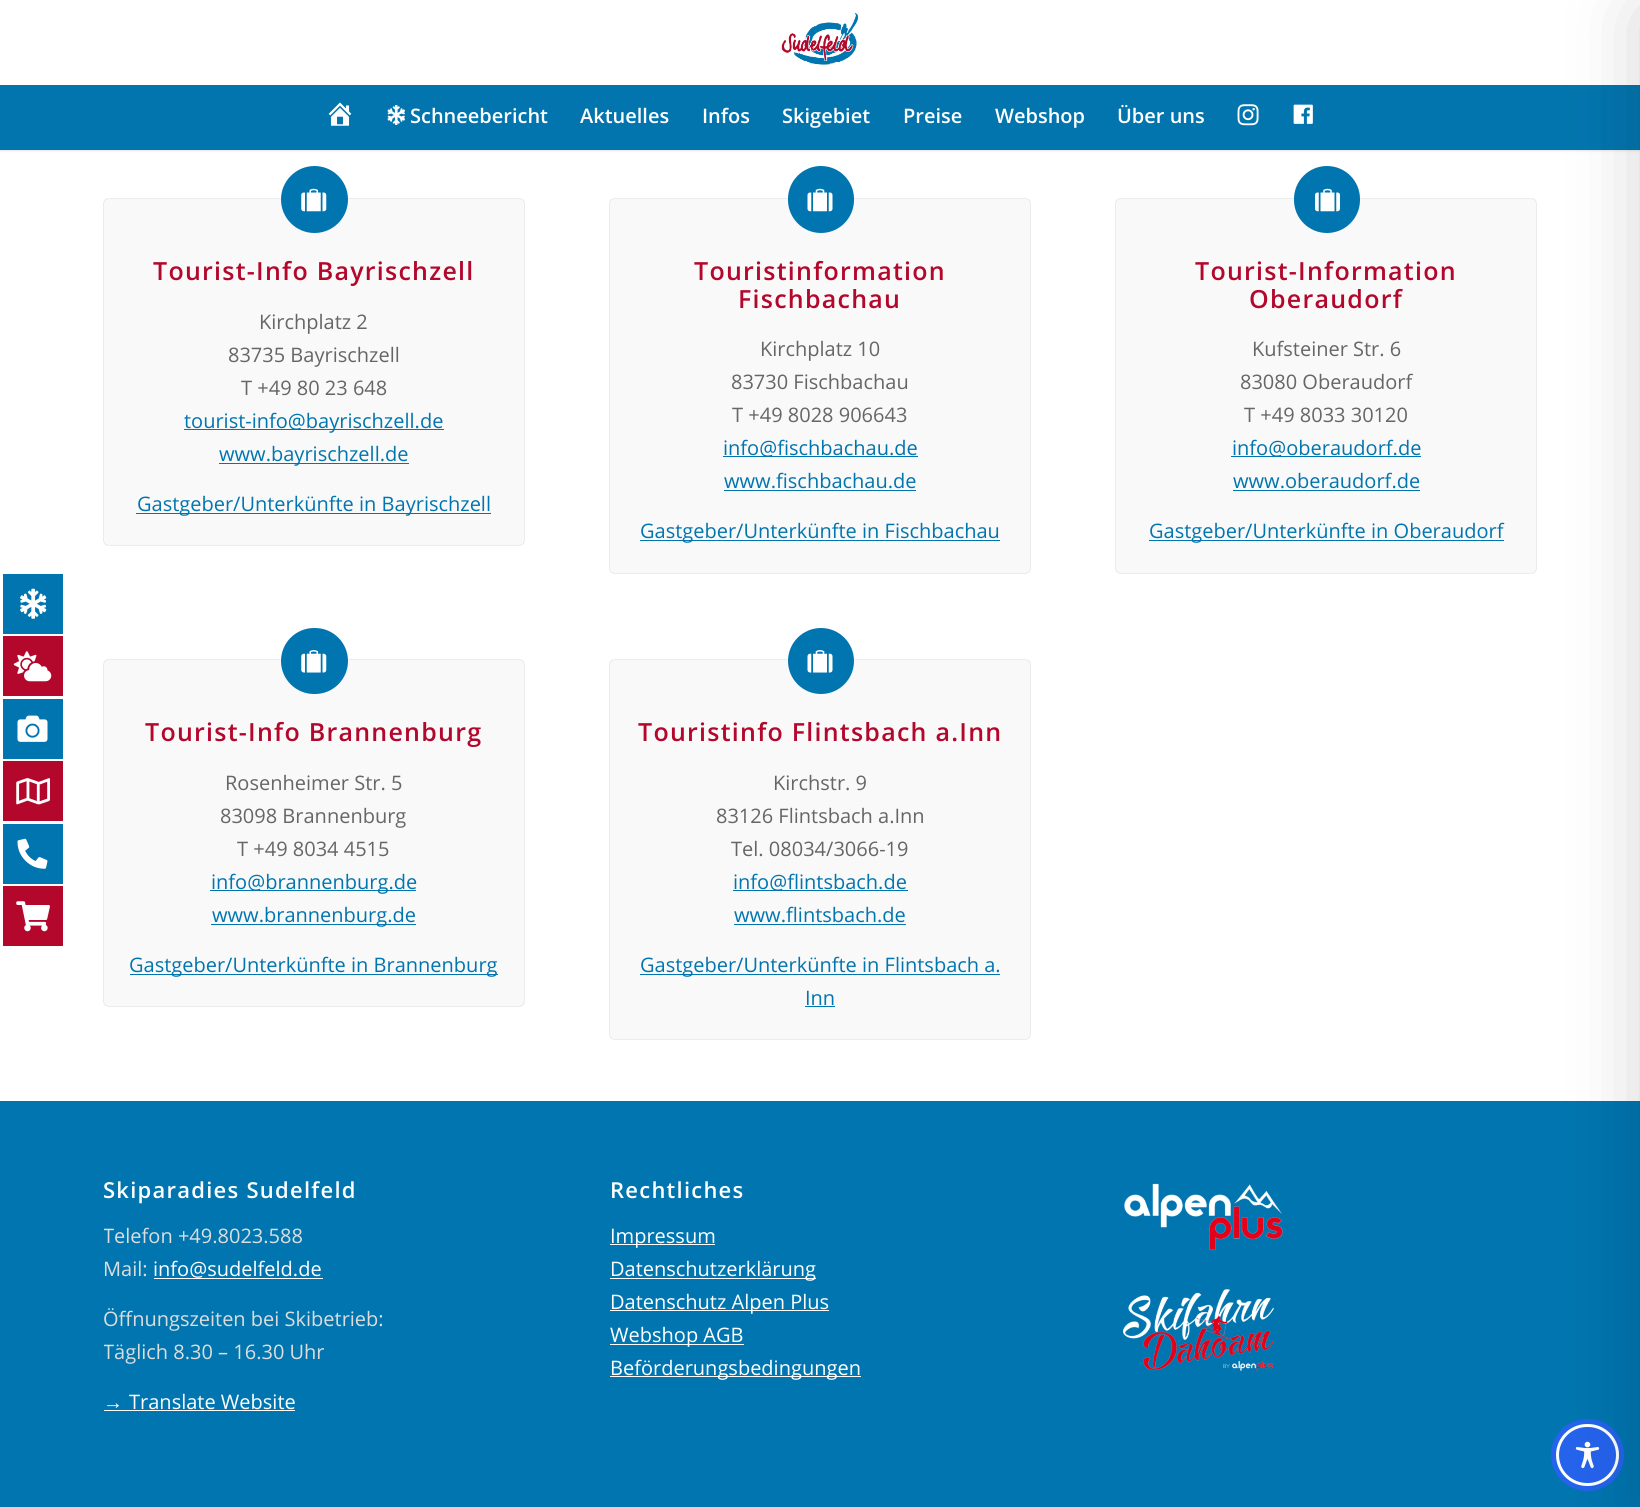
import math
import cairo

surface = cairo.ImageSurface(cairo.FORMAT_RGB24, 1640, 1507)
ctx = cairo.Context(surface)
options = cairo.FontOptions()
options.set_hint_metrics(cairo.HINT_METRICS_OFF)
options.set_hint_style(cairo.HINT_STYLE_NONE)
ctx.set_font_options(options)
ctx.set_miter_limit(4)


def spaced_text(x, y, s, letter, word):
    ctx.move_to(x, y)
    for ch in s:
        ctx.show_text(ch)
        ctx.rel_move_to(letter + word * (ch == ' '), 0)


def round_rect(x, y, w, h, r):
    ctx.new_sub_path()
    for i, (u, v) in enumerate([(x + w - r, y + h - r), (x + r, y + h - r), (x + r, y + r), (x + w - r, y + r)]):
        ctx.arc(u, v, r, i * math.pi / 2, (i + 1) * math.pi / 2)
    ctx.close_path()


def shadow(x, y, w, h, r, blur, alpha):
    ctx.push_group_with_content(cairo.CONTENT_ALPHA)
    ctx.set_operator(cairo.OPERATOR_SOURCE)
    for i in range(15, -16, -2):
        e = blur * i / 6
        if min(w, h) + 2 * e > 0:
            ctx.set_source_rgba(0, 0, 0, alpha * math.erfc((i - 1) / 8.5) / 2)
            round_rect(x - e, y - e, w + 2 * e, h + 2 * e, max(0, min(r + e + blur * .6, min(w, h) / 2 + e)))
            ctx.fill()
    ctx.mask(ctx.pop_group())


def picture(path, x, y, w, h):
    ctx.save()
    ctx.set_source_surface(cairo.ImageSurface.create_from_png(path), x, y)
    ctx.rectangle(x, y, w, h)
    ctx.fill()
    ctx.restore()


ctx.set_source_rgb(1, 1, 1)
ctx.paint()
ctx.set_source_rgb(0.004, 0.459, 0.686)
ctx.rectangle(3, 574, 60, 60)
ctx.fill()
picture("img1.png", 20, 588, 27, 31)
ctx.set_source_rgb(0.702, 0.031, 0.173)
ctx.rectangle(3, 636, 60, 60)
ctx.fill()
picture("img2.png", 13, 651, 39, 31)
ctx.set_source_rgb(0.004, 0.459, 0.686)
ctx.rectangle(3, 699, 60, 60)
ctx.fill()
picture("img3.png", 17, 715, 31, 27)
ctx.set_source_rgb(0.702, 0.031, 0.173)
ctx.rectangle(3, 761, 60, 60)
ctx.fill()
picture("img4.png", 16, 778, 34, 27)
ctx.set_source_rgb(0.004, 0.459, 0.686)
ctx.rectangle(3, 824, 60, 60)
ctx.fill()
picture("img5.png", 17, 838, 31, 31)
ctx.set_source_rgb(0.702, 0.031, 0.173)
ctx.rectangle(3, 886, 60, 60)
ctx.fill()
picture("img6.png", 16, 901, 34, 31)
ctx.set_source_rgb(0, 0, 0)
shadow(-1, -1, 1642, 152, 0, 1, 0.1)
ctx.set_source_rgb(1, 1, 1)
ctx.rectangle(0, 0, 1640, 85)
ctx.fill()
picture("img7.png", 781, 13, 78, 52)
ctx.set_source_rgb(0.012, 0.459, 0.682)
ctx.rectangle(0, 85, 1640, 65)
ctx.fill()
picture("img8.png", 328, 102, 24, 24)
picture("img9.png", 387, 105, 18, 20)
ctx.select_font_face("Open Sans SemiBold")
ctx.set_font_size(20)
ctx.set_source_rgb(1, 1, 1)
ctx.move_to(410, 123)
ctx.show_text("Schneebericht")
ctx.move_to(580, 123)
ctx.show_text("Aktuelles")
ctx.move_to(702, 123)
ctx.show_text("Infos")
ctx.move_to(782, 123)
ctx.show_text("Skigebiet")
ctx.move_to(903, 123)
ctx.show_text("Preise")
ctx.move_to(995, 123)
ctx.show_text("Webshop")
ctx.move_to(1117, 123)
ctx.show_text("Über uns")
picture("img10.png", 1237, 104, 22, 22)
picture("img11.png", 1293, 104, 20, 20)
ctx.set_source_rgb(0, 0, 0)
shadow(104, 199, 420, 346, 4, 0.5, 0.3)
ctx.set_source_rgb(0.973, 0.973, 0.973)
round_rect(104, 199, 420, 346, 4)
ctx.fill()
ctx.set_source_rgb(0.004, 0.459, 0.686)
ctx.arc(314.5, 199.5, 33.5, 0, 2 * math.pi)
ctx.fill()
picture("img12.png", 301, 188, 26, 24)
ctx.set_font_size(25)
ctx.set_source_rgb(0.702, 0.031, 0.173)
spaced_text(153, 280, "Tourist-Info Bayrischzell", 1.25, 0)
ctx.select_font_face("Open Sans")
ctx.set_font_size(20)
ctx.set_source_rgb(0.4, 0.4, 0.4)
ctx.move_to(259, 329)
ctx.show_text("Kirchplatz 2")
ctx.move_to(228, 362)
ctx.show_text("83735 Bayrischzell")
ctx.move_to(241, 395)
ctx.show_text("T +49 80 23 648")
ctx.set_source_rgb(0.004, 0.459, 0.686)
ctx.rectangle(184, 429, 260, 1)
ctx.fill()
ctx.move_to(184, 428)
ctx.show_text("tourist-info@bayrischzell.de")
ctx.rectangle(219, 463, 190, 1)
ctx.fill()
ctx.move_to(219, 461)
ctx.show_text("www.bayrischzell.de")
ctx.rectangle(136, 513, 355, 1)
ctx.fill()
ctx.move_to(137, 511)
ctx.show_text("Gastgeber/Unterkünfte in Bayrischzell")
ctx.set_source_rgb(0, 0, 0)
shadow(610, 199, 420, 374, 4, 0.5, 0.3)
ctx.set_source_rgb(0.973, 0.973, 0.973)
round_rect(610, 199, 420, 374, 4)
ctx.fill()
ctx.set_source_rgb(0.004, 0.459, 0.686)
round_rect(788, 166, 66, 67, 33)
ctx.fill()
picture("img13.png", 807, 188, 26, 24)
ctx.select_font_face("Open Sans SemiBold")
ctx.set_font_size(25)
ctx.set_source_rgb(0.702, 0.031, 0.173)
spaced_text(694, 280, "Touristinformation", 1.25, 0)
spaced_text(738, 308, "Fischbachau", 1.25, 0)
ctx.select_font_face("Open Sans")
ctx.set_font_size(20)
ctx.set_source_rgb(0.4, 0.4, 0.4)
ctx.move_to(760, 356)
ctx.show_text("Kirchplatz 10")
ctx.move_to(731, 389)
ctx.show_text("83730 Fischbachau")
ctx.move_to(732, 422)
ctx.show_text("T +49 8028 906643")
ctx.set_source_rgb(0.004, 0.459, 0.686)
ctx.rectangle(723, 456, 195, 1)
ctx.fill()
ctx.move_to(723, 455)
ctx.show_text("info@fischbachau.de")
ctx.move_to(724, 488)
ctx.show_text("www.fischbachau.de")
ctx.rectangle(724, 490, 192, 1)
ctx.fill()
ctx.rectangle(640, 540, 360, 1)
ctx.fill()
ctx.move_to(640, 538)
ctx.show_text("Gastgeber/Unterkünfte in Fischbachau")
ctx.set_source_rgb(0, 0, 0)
shadow(1116, 199, 420, 374, 4, 0.5, 0.3)
ctx.set_source_rgb(0.973, 0.973, 0.973)
round_rect(1116, 199, 420, 374, 4)
ctx.fill()
ctx.set_source_rgb(0.004, 0.459, 0.686)
round_rect(1294, 166, 66, 67, 33)
ctx.fill()
picture("img14.png", 1315, 188, 25, 24)
ctx.select_font_face("Open Sans SemiBold")
ctx.set_font_size(25)
ctx.set_source_rgb(0.702, 0.031, 0.173)
spaced_text(1195, 280, "Tourist-Information", 1.25, 0)
spaced_text(1249, 308, "Oberaudorf", 1.25, 0)
ctx.select_font_face("Open Sans")
ctx.set_font_size(20)
ctx.set_source_rgb(0.4, 0.4, 0.4)
ctx.move_to(1252, 356)
ctx.show_text("Kufsteiner Str. 6")
ctx.move_to(1240, 389)
ctx.show_text("83080 Oberaudorf")
ctx.move_to(1244, 422)
ctx.show_text("T +49 8033 30120")
ctx.set_source_rgb(0.004, 0.459, 0.686)
ctx.rectangle(1231, 456, 190, 1)
ctx.fill()
ctx.move_to(1232, 455)
ctx.show_text("info@oberaudorf.de")
ctx.move_to(1233, 488)
ctx.show_text("www.oberaudorf.de")
ctx.rectangle(1233, 490, 187, 1)
ctx.fill()
ctx.rectangle(1149, 540, 355, 1)
ctx.fill()
ctx.move_to(1149, 538)
ctx.show_text("Gastgeber/Unterkünfte in Oberaudorf")
ctx.set_source_rgb(0, 0, 0)
shadow(104, 660, 420, 346, 4, 0.5, 0.3)
ctx.set_source_rgb(0.973, 0.973, 0.973)
round_rect(104, 660, 420, 346, 4)
ctx.fill()
ctx.set_source_rgb(0.004, 0.459, 0.686)
round_rect(281, 628, 67, 66, 33)
ctx.fill()
picture("img15.png", 301, 650, 26, 23)
ctx.select_font_face("Open Sans SemiBold")
ctx.set_font_size(25)
ctx.set_source_rgb(0.702, 0.031, 0.173)
spaced_text(145, 741, "Tourist-Info Brannenburg", 1.25, 0)
ctx.select_font_face("Open Sans")
ctx.set_font_size(20)
ctx.set_source_rgb(0.4, 0.4, 0.4)
ctx.move_to(225, 790)
ctx.show_text("Rosenheimer Str. 5")
ctx.move_to(220, 823)
ctx.show_text("83098 Brannenburg")
ctx.move_to(237, 856)
ctx.show_text("T +49 8034 4515")
ctx.set_source_rgb(0.004, 0.459, 0.686)
ctx.rectangle(210, 890, 206, 1)
ctx.fill()
ctx.move_to(211, 889)
ctx.show_text("info@brannenburg.de")
ctx.rectangle(211, 924, 205, 1)
ctx.fill()
ctx.move_to(212, 922)
ctx.show_text("www.brannenburg.de")
ctx.rectangle(130, 974, 368, 1)
ctx.fill()
ctx.move_to(129, 972)
ctx.show_text("Gastgeber/Unterkünfte in Brannenburg")
ctx.set_source_rgb(0, 0, 0)
shadow(610, 660, 420, 379, 4, 0.5, 0.3)
ctx.set_source_rgb(0.973, 0.973, 0.973)
round_rect(610, 660, 420, 379, 4)
ctx.fill()
ctx.set_source_rgb(0.004, 0.459, 0.686)
ctx.arc(821, 661, 33, 0, 2 * math.pi)
ctx.fill()
picture("img16.png", 807, 650, 26, 23)
ctx.select_font_face("Open Sans SemiBold")
ctx.set_font_size(25)
ctx.set_source_rgb(0.702, 0.031, 0.173)
spaced_text(638, 741, "Touristinfo Flintsbach a.Inn", 1.25, 0)
ctx.select_font_face("Open Sans")
ctx.set_font_size(20)
ctx.set_source_rgb(0.4, 0.4, 0.4)
ctx.move_to(773, 790)
ctx.show_text("Kirchstr. 9")
ctx.move_to(716, 823)
ctx.show_text("83126 Flintsbach a.Inn")
ctx.move_to(731, 856)
ctx.show_text("Tel. 08034/3066-19")
ctx.set_source_rgb(0.004, 0.459, 0.686)
ctx.rectangle(733, 890, 175, 1)
ctx.fill()
ctx.move_to(733, 889)
ctx.show_text("info@flintsbach.de")
ctx.move_to(734, 922)
ctx.show_text("www.flintsbach.de")
ctx.rectangle(734, 924, 172, 1)
ctx.fill()
ctx.rectangle(640, 974, 360, 1)
ctx.fill()
ctx.move_to(640, 972)
ctx.show_text("Gastgeber/Unterkünfte in Flintsbach a.")
ctx.move_to(805, 1005)
ctx.show_text("Inn")
ctx.rectangle(805, 1006, 30, 1)
ctx.fill()
ctx.rectangle(0, 1101, 1640, 406)
ctx.fill()
ctx.select_font_face("Open Sans SemiBold")
ctx.set_font_size(22)
ctx.set_source_rgb(1, 1, 1)
spaced_text(103, 1198, "Skiparadies Sudelfeld", 1.25, 0)
ctx.save()
ctx.rectangle(104, 1159, 420, 276)
ctx.clip()
ctx.select_font_face("Open Sans")
ctx.set_font_size(20)
ctx.set_source_rgb(0.867, 0.867, 0.867)
ctx.move_to(103, 1243)
ctx.show_text("Telefon +49.8023.588")
ctx.restore()
ctx.select_font_face("Open Sans")
ctx.set_font_size(20)
ctx.set_source_rgb(0.867, 0.867, 0.867)
ctx.move_to(103, 1276)
ctx.show_text("Mail:")
ctx.set_source_rgb(1, 1, 1)
ctx.move_to(153, 1276)
ctx.show_text("info@sudelfeld.de")
ctx.rectangle(154, 1278, 169, 1)
ctx.fill()
ctx.set_source_rgb(0.867, 0.867, 0.867)
ctx.move_to(103, 1326)
ctx.show_text("Öffnungszeiten bei Skibetrieb:")
ctx.save()
ctx.rectangle(104, 1159, 420, 276)
ctx.clip()
ctx.move_to(103, 1359)
ctx.show_text("Täglich 8.30 – 16.30 Uhr")
ctx.restore()
ctx.select_font_face("Liberation Sans")
ctx.set_source_rgb(1, 1, 1)
ctx.move_to(103, 1409)
ctx.show_text("→")
ctx.rectangle(104, 1410, 191, 1)
ctx.fill()
ctx.select_font_face("Open Sans")
ctx.move_to(129, 1409)
ctx.show_text("Translate Website")
ctx.select_font_face("Open Sans SemiBold")
ctx.set_font_size(22)
spaced_text(610, 1198, "Rechtliches", 1.25, 0)
ctx.rectangle(610, 1244, 105, 1)
ctx.fill()
ctx.select_font_face("Open Sans")
ctx.set_font_size(20)
ctx.move_to(610, 1243)
ctx.show_text("Impressum")
ctx.rectangle(610, 1278, 206, 1)
ctx.fill()
ctx.move_to(610, 1276)
ctx.show_text("Datenschutzerklärung")
ctx.rectangle(610, 1310, 219, 1)
ctx.fill()
ctx.move_to(610, 1309)
ctx.show_text("Datenschutz Alpen Plus")
ctx.rectangle(610, 1344, 134, 1)
ctx.fill()
ctx.move_to(610, 1342)
ctx.show_text("Webshop AGB")
ctx.rectangle(610, 1376, 251, 1)
ctx.fill()
ctx.move_to(610, 1375)
ctx.show_text("Beförderungsbedingungen")
picture("img17.png", 1124, 1183, 159, 68)
picture("img18.png", 1123, 1289, 152, 82)
round_rect(1553.5, 1421.5, 68, 67, 33.5)
ctx.set_source_rgb(0.145, 0.388, 0.922)
ctx.set_line_width(5)
ctx.stroke()
round_rect(1557.5, 1425.5, 60, 59, 29.5)
ctx.fill_preserve()
ctx.set_source_rgb(1, 1, 1)
ctx.set_line_width(3)
ctx.stroke()
picture("img19.png", 1575, 1441, 25, 28)
ctx.set_source_rgb(0, 0, 0)
shadow(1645, 13, 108, 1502, 0, 37.5, 0.2)
surface.write_to_png("page.png")
